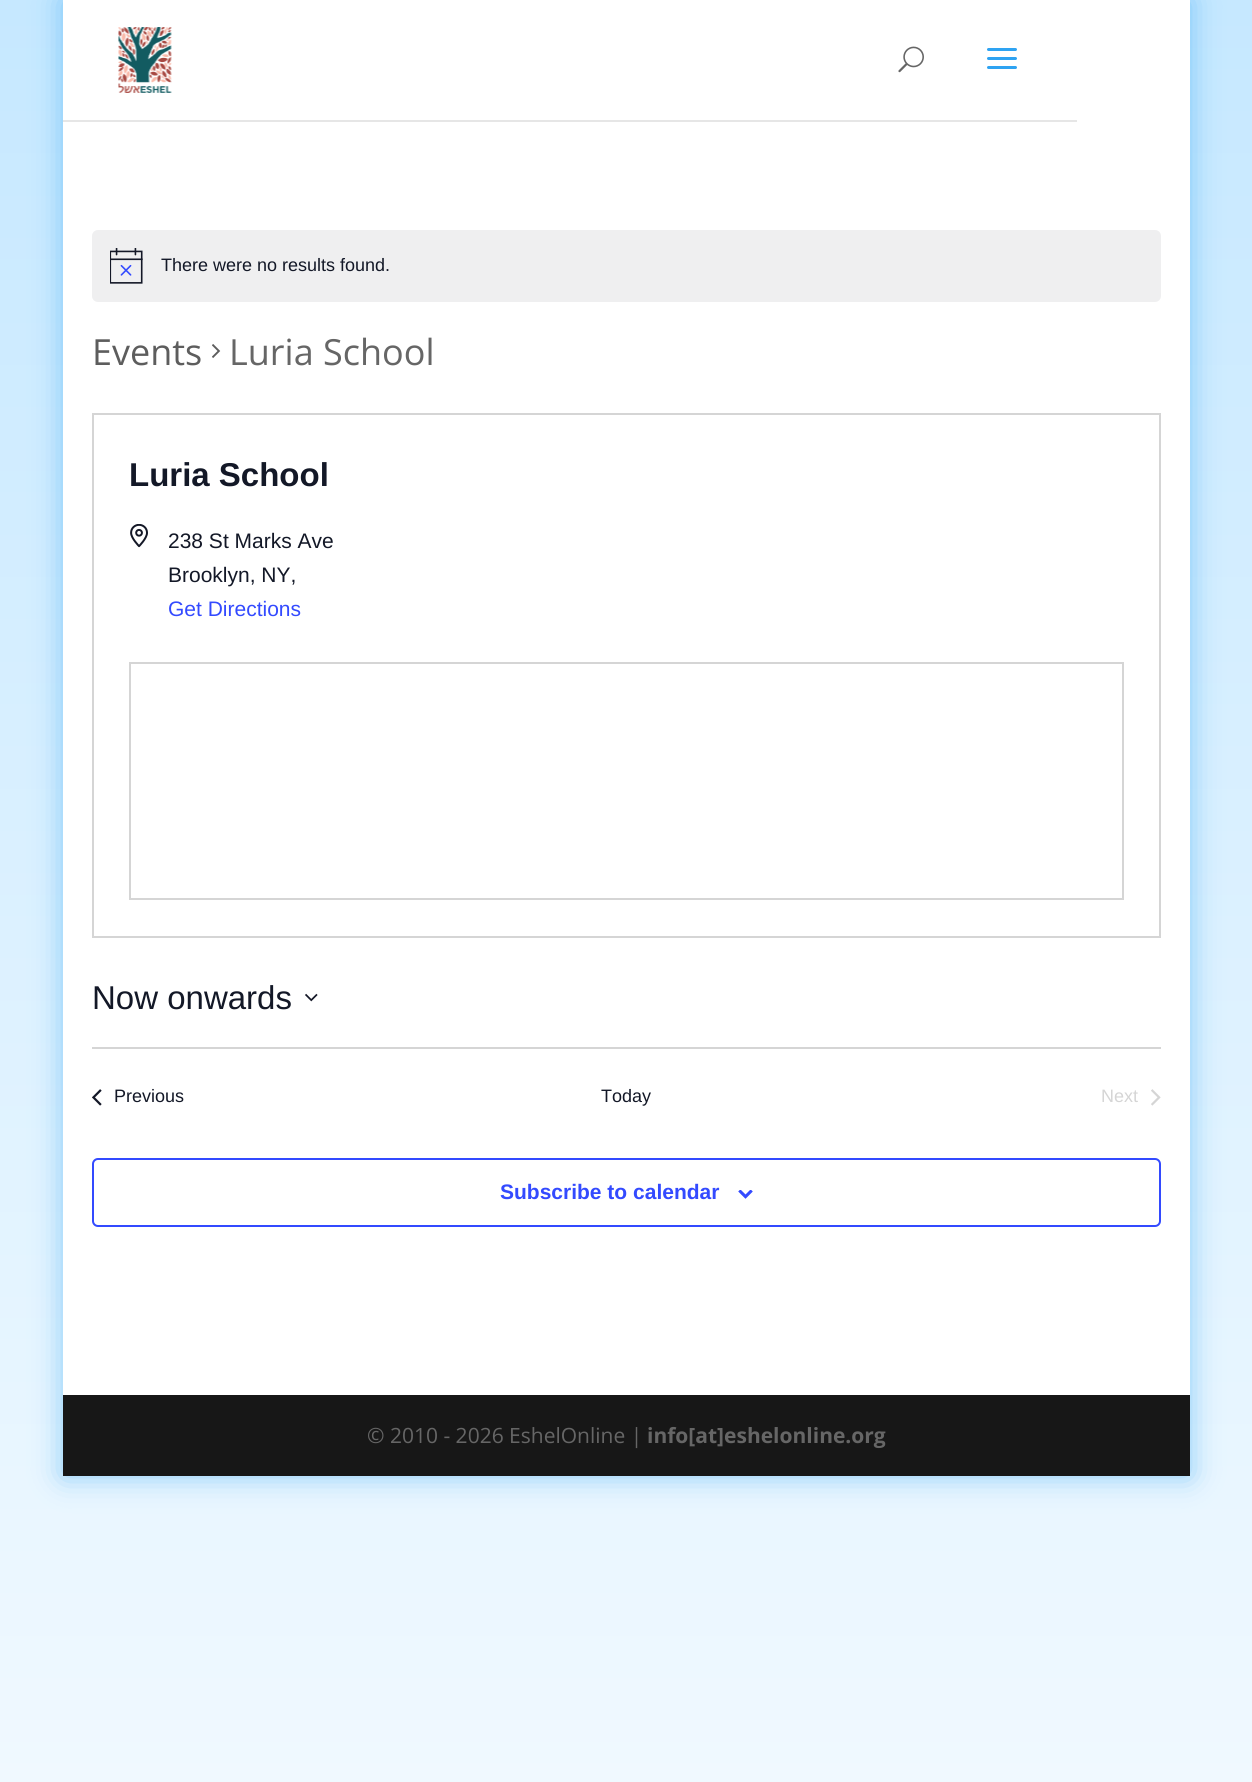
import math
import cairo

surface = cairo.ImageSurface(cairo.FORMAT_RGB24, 1252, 1782)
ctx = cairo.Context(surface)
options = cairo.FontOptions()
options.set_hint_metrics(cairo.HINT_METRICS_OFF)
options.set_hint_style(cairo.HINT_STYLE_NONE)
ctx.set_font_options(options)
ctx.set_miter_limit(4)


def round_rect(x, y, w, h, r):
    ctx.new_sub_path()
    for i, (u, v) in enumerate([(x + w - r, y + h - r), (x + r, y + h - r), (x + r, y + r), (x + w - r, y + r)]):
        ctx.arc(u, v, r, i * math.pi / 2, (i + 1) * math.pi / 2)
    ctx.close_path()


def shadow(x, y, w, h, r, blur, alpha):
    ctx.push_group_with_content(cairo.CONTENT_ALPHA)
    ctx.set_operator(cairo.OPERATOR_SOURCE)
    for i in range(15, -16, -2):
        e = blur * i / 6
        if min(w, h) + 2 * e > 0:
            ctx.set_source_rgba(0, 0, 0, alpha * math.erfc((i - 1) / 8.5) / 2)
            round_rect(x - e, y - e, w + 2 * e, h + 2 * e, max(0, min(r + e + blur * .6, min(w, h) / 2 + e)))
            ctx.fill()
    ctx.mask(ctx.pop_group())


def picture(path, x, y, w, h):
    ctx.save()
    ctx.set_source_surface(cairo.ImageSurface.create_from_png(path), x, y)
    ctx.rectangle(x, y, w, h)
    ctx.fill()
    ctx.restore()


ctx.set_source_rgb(1, 1, 1)
ctx.paint()
gradient = cairo.LinearGradient(626, 0, 626, 1782)
gradient.add_color_stop_rgba(0, 0.776, 0.91, 1, 1)
gradient.add_color_stop_rgba(1, 0.941, 0.976, 1, 1)
ctx.set_source(gradient)
ctx.rectangle(0, 0, 1252, 1782)
ctx.fill()
ctx.set_source_rgb(0.176, 0.639, 0.949)
shadow(63, 0, 1127, 1476, 0, 15, 0.5)
ctx.set_source_rgb(1, 1, 1)
ctx.rectangle(63, 0, 1127, 1395)
ctx.fill()
ctx.set_source_rgb(0.902, 0.902, 0.902)
ctx.rectangle(63, 120, 1014, 2)
ctx.fill()
picture("img1.png", 118, 27, 54, 66)
picture("img2.png", 898, 46, 26, 27)
picture("img3.png", 987, 48, 30, 21)
ctx.set_source_rgb(0.937, 0.937, 0.941)
round_rect(92, 230, 1069, 72, 6)
ctx.fill()
picture("img4.png", 110, 248, 33, 36)
ctx.select_font_face("Liberation Sans")
ctx.set_font_size(18)
ctx.set_source_rgb(0.078, 0.094, 0.153)
ctx.move_to(161, 271)
ctx.show_text("There were no results found.")
ctx.select_font_face("Open Sans")
ctx.set_font_size(36)
ctx.set_source_rgb(0.365, 0.365, 0.365)
ctx.move_to(92, 365)
ctx.show_text("Events")
picture("img5.png", 212, 344, 9, 14)
ctx.set_source_rgb(0.4, 0.4, 0.4)
ctx.move_to(229, 365)
ctx.show_text("Luria School")
ctx.rectangle(93, 414, 1067, 523)
ctx.set_source_rgb(0.835, 0.835, 0.835)
ctx.stroke()
ctx.select_font_face("Liberation Sans", cairo.FONT_SLANT_NORMAL, cairo.FONT_WEIGHT_BOLD)
ctx.set_font_size(33)
ctx.set_source_rgb(0.078, 0.094, 0.153)
ctx.move_to(129, 486)
ctx.show_text("Luria School")
picture("img6.png", 130, 524, 18, 24)
ctx.select_font_face("Liberation Sans")
ctx.set_font_size(21)
ctx.move_to(168, 548)
ctx.show_text("238 St Marks Ave")
ctx.move_to(168, 582)
ctx.show_text("Brooklyn, NY,")
ctx.set_source_rgb(0.2, 0.29, 1)
ctx.move_to(168, 616)
ctx.show_text("Get Directions")
ctx.rectangle(130, 663, 993, 236)
ctx.set_source_rgb(0.835, 0.835, 0.835)
ctx.stroke()
ctx.set_font_size(33)
ctx.set_source_rgb(0.078, 0.094, 0.153)
ctx.move_to(92, 1009)
ctx.show_text("Now onwards")
picture("img7.png", 305, 993, 13, 9)
ctx.set_source_rgb(0.835, 0.835, 0.835)
ctx.rectangle(92, 1047, 1069, 2)
ctx.fill()
picture("img8.png", 92, 1089, 10, 17)
ctx.set_font_size(18)
ctx.set_source_rgb(0.078, 0.094, 0.153)
ctx.move_to(114, 1102)
ctx.show_text("Previous")
ctx.move_to(601, 1102)
ctx.show_text("Today")
ctx.set_source_rgb(0.835, 0.835, 0.835)
ctx.move_to(1101, 1102)
ctx.show_text("Next")
picture("img9.png", 1151, 1089, 10, 17)
round_rect(93, 1159, 1067, 67, 5)
ctx.set_source_rgb(0.2, 0.29, 1)
ctx.stroke()
ctx.select_font_face("Liberation Sans", cairo.FONT_SLANT_NORMAL, cairo.FONT_WEIGHT_BOLD)
ctx.set_font_size(21)
ctx.move_to(500, 1199)
ctx.show_text("Subscribe to calendar")
picture("img10.png", 738, 1190, 15, 9)
ctx.set_source_rgb(0.09, 0.09, 0.09)
ctx.rectangle(63, 1395, 1127, 81)
ctx.fill()
ctx.select_font_face("Open Sans")
ctx.set_source_rgb(0.4, 0.4, 0.4)
ctx.move_to(367, 1443)
ctx.show_text("© 2010 - 2026 EshelOnline |")
ctx.select_font_face("Open Sans", cairo.FONT_SLANT_NORMAL, cairo.FONT_WEIGHT_BOLD)
ctx.move_to(647, 1443)
ctx.show_text("info[at]eshelonline.org")
surface.write_to_png("page.png")
